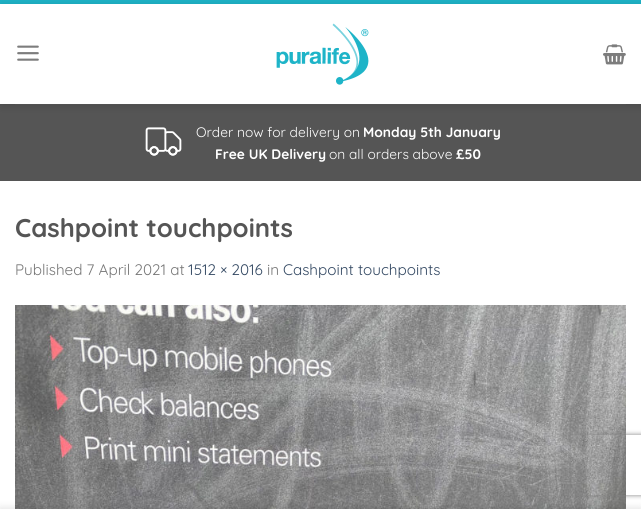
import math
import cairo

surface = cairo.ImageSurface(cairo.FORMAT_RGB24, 641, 509)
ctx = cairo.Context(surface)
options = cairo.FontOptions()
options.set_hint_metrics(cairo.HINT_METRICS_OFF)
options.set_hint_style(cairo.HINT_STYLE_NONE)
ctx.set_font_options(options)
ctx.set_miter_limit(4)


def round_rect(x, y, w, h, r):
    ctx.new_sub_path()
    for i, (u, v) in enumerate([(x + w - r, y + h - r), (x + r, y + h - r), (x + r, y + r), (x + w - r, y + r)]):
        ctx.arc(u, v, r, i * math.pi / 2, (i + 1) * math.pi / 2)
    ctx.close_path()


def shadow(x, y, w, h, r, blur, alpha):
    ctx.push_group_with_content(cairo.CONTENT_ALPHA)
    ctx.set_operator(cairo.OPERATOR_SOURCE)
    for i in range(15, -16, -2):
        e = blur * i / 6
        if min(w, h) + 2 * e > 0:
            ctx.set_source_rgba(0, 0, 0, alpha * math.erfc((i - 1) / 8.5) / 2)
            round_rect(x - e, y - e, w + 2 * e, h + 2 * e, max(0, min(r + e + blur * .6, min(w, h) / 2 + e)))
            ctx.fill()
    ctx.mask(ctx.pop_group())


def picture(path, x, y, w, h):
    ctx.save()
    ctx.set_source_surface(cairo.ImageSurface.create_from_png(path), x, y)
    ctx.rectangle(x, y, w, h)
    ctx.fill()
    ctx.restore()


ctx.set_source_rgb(0.118, 0.706, 0.784)
ctx.paint()
ctx.set_source_rgb(1, 1, 1)
ctx.rectangle(0, 4, 641, 505)
ctx.fill()
ctx.set_source_rgb(0.333, 0.333, 0.333)
ctx.rectangle(0, 104, 641, 77)
ctx.fill()
ctx.save()
ctx.set_fill_rule(cairo.FILL_RULE_EVEN_ODD)
ctx.new_path()
ctx.move_to(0, 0)
ctx.line_to(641, 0)
ctx.line_to(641, 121)
ctx.line_to(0, 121)
ctx.close_path()
ctx.move_to(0, 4)
ctx.line_to(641, 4)
ctx.line_to(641, 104)
ctx.line_to(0, 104)
ctx.close_path()
ctx.clip()
ctx.set_source_rgb(0, 0, 0)
shadow(1, 5, 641, 100, 0, 5, 0.15)
ctx.restore()
picture("img1.png", 17, 45, 22, 16)
picture("img2.png", 276, 23, 93, 62)
picture("img3.png", 603, 44, 23, 21)
ctx.set_source_rgb(0.322, 0.322, 0.322)
ctx.rectangle(15, 104, 611, 1)
ctx.fill()
picture("img4.png", 145, 127, 37, 29)
ctx.select_font_face("Quicksand")
ctx.set_font_size(13.75)
ctx.set_source_rgb(1, 1, 1)
ctx.move_to(196, 137)
ctx.show_text("Order now for delivery on")
ctx.select_font_face("Quicksand", cairo.FONT_SLANT_NORMAL, cairo.FONT_WEIGHT_BOLD)
ctx.move_to(363, 137)
ctx.show_text("Monday 5th January")
ctx.move_to(215, 159)
ctx.show_text("Free UK Delivery")
ctx.select_font_face("Quicksand")
ctx.move_to(329, 159)
ctx.show_text("on all orders above")
ctx.select_font_face("Quicksand", cairo.FONT_SLANT_NORMAL, cairo.FONT_WEIGHT_BOLD)
ctx.move_to(456, 159)
ctx.show_text("£50")
ctx.set_font_size(25.75)
ctx.set_source_rgb(0.333, 0.333, 0.333)
ctx.move_to(15, 237)
ctx.show_text("Cashpoint touchpoints")
ctx.select_font_face("Quicksand")
ctx.set_font_size(15.25)
ctx.set_source_rgb(0.467, 0.467, 0.467)
ctx.move_to(15, 275)
ctx.show_text("Published 7 April 2021 at")
ctx.set_source_rgb(0.2, 0.282, 0.384)
ctx.move_to(188, 275)
ctx.show_text("1512 × 2016")
ctx.set_source_rgb(0.467, 0.467, 0.467)
ctx.move_to(267, 275)
ctx.show_text("in")
ctx.set_source_rgb(0.2, 0.282, 0.384)
ctx.move_to(283, 275)
ctx.show_text("Cashpoint touchpoints")
picture("img5.png", 15, 305, 611, 204)
ctx.save()
ctx.set_fill_rule(cairo.FILL_RULE_EVEN_ODD)
ctx.new_path()
ctx.move_to(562, 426)
ctx.line_to(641, 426)
ctx.line_to(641, 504)
ctx.line_to(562, 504)
ctx.close_path()
ctx.move_to(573, 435)
ctx.line_to(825, 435)
ctx.curve_to(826, 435, 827, 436, 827, 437)
ctx.line_to(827, 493)
ctx.curve_to(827, 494, 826, 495, 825, 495)
ctx.line_to(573, 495)
ctx.curve_to(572, 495, 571, 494, 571, 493)
ctx.line_to(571, 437)
ctx.curve_to(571, 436, 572, 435, 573, 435)
ctx.close_path()
ctx.clip()
ctx.set_source_rgb(0.502, 0.502, 0.502)
shadow(571, 435, 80, 60, 2, 2.5, 1)
ctx.restore()
ctx.set_source_rgb(0, 0, 0)
shadow(0, 509, 641, 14, 0, 4.5, 0.14)
surface.write_to_png("page.png")
